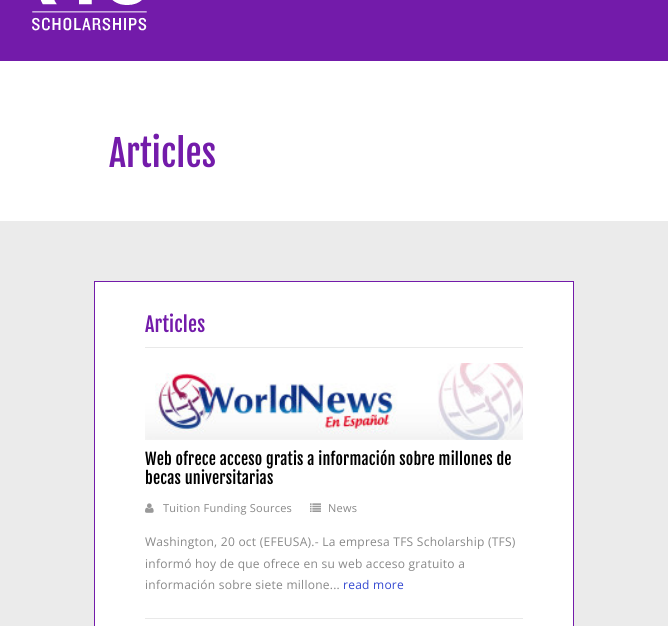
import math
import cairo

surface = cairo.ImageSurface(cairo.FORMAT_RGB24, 668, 626)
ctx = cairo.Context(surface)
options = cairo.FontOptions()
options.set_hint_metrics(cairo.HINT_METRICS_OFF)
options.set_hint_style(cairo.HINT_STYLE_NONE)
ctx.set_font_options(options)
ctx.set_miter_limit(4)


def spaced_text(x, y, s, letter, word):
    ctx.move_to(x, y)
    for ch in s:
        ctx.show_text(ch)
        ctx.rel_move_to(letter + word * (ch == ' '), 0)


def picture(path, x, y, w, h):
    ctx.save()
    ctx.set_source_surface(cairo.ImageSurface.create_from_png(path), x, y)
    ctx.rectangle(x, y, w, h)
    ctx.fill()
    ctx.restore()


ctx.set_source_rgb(0.918, 0.918, 0.918)
ctx.paint()
ctx.set_source_rgb(0.451, 0.106, 0.667)
ctx.rectangle(0, 0, 668, 61)
ctx.fill()
picture("img1.png", 32, 0, 115, 31)
ctx.set_source_rgb(1, 1, 1)
ctx.rectangle(0, 61, 668, 160)
ctx.fill()
ctx.select_font_face("Fjalla One")
ctx.set_font_size(36)
ctx.set_source_rgb(0.451, 0.106, 0.667)
spaced_text(109, 167, "Articles", 0.2, 0)
ctx.set_source_rgb(1, 1, 1)
ctx.rectangle(94.5, 281.5, 479, 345)
ctx.fill_preserve()
ctx.set_source_rgb(0.451, 0.106, 0.667)
ctx.set_line_width(1)
ctx.stroke()
ctx.set_source_rgb(0.914, 0.914, 0.914)
ctx.rectangle(145, 347, 378, 1)
ctx.fill()
ctx.set_font_size(20)
ctx.set_source_rgb(0.451, 0.106, 0.667)
spaced_text(145, 332, "Articles", 0.2, 0)
ctx.set_source_rgb(0.914, 0.914, 0.914)
ctx.rectangle(145, 618, 378, 1)
ctx.fill()
picture("img2.png", 145, 363, 378, 77)
ctx.set_font_size(16)
ctx.set_source_rgb(0, 0, 0)
spaced_text(145, 465, "Web ofrece acceso gratis a información sobre millones de", 0.2, 0)
spaced_text(145, 484, "becas universitarias", 0.2, 0)
picture("img3.png", 145, 503, 9, 10)
ctx.select_font_face("Open Sans")
ctx.set_font_size(11)
ctx.set_source_rgb(0.533, 0.533, 0.533)
spaced_text(163, 512, "Tuition Funding Sources", 0.25, 0)
picture("img4.png", 310, 503, 11, 9)
spaced_text(328, 512, "News", 0.25, 0)
ctx.set_font_size(12)
spaced_text(145, 546, "Washington, 20 oct (EFEUSA).- La empresa TFS Scholarship (TFS)", 0.25, 0)
spaced_text(145, 568, "informó hoy de que ofrece en su web acceso gratuito a", 0.25, 0)
spaced_text(145, 589, "información sobre siete millone...", 0.25, 0)
ctx.set_source_rgb(0.204, 0.286, 0.82)
spaced_text(343, 589, "read more", 0.25, 0)
surface.write_to_png("page.png")
